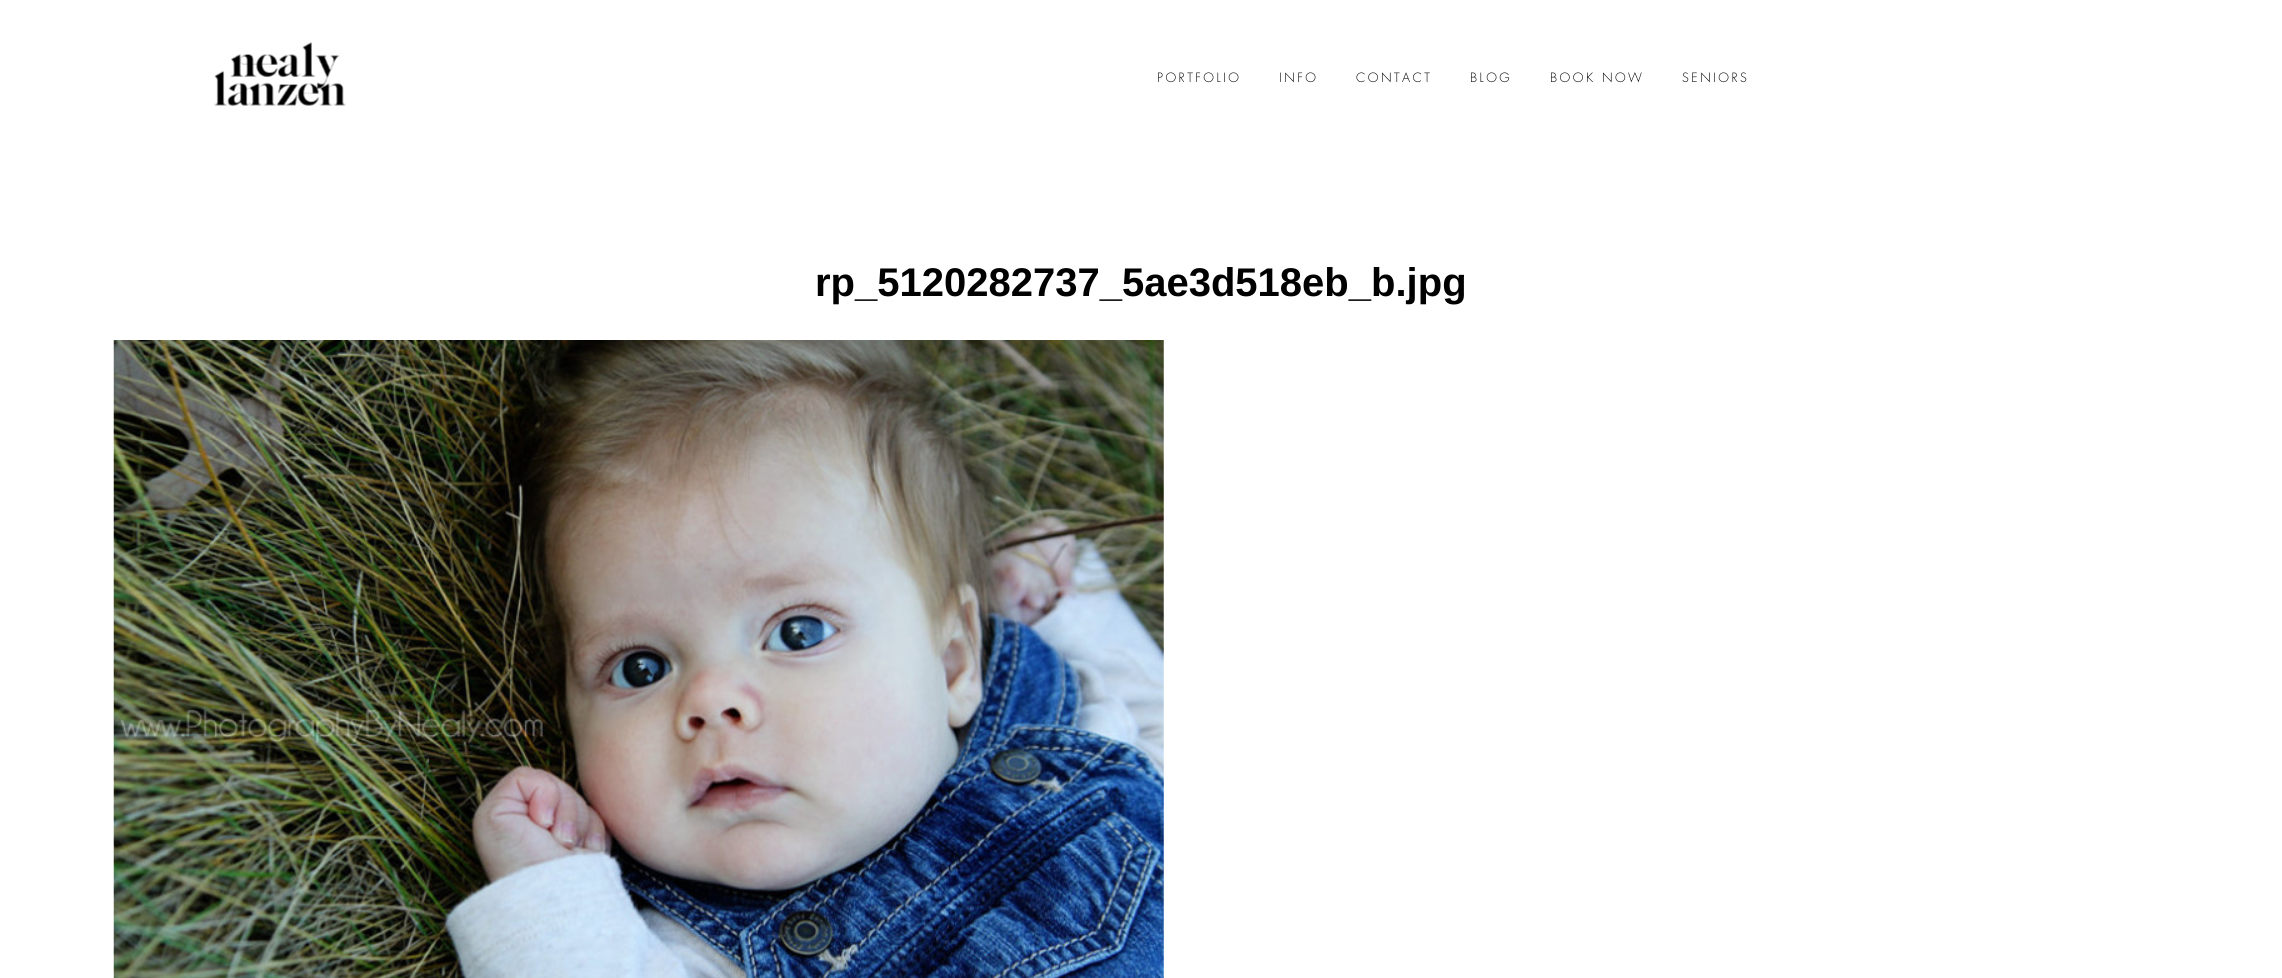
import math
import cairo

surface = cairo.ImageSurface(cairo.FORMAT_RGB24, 2282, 978)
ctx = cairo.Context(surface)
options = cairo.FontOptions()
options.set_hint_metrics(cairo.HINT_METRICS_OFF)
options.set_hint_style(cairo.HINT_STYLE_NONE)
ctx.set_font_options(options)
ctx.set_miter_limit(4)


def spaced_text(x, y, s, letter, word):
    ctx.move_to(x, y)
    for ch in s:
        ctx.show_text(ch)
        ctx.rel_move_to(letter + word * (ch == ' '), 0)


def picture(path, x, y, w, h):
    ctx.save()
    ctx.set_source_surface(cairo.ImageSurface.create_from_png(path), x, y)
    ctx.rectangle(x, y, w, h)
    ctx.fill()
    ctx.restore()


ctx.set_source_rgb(1, 1, 1)
ctx.paint()
picture("img1.png", 214, 42, 132, 64)
ctx.select_font_face("Futura Light")
ctx.set_font_size(12.5)
ctx.set_source_rgb(0, 0, 0)
spaced_text(1157, 82, "PORTFOLIO", 2.5, 0)
spaced_text(1279, 82, "INFO", 2.5, 0)
spaced_text(1356, 82, "CONTACT", 2.5, 0)
spaced_text(1470, 82, "BLOG", 2.5, 0)
spaced_text(1550, 82, "BOOK NOW", 2.5, 0)
spaced_text(1682, 82, "SENIORS", 2.5, 0)
ctx.select_font_face("Liberation Sans", cairo.FONT_SLANT_NORMAL, cairo.FONT_WEIGHT_BOLD)
ctx.set_font_size(40)
ctx.move_to(815, 296)
ctx.show_text("rp_5120282737_5ae3d518eb_b.jpg")
picture("img2.png", 113, 340, 1051, 638)
surface.write_to_png("page.png")
